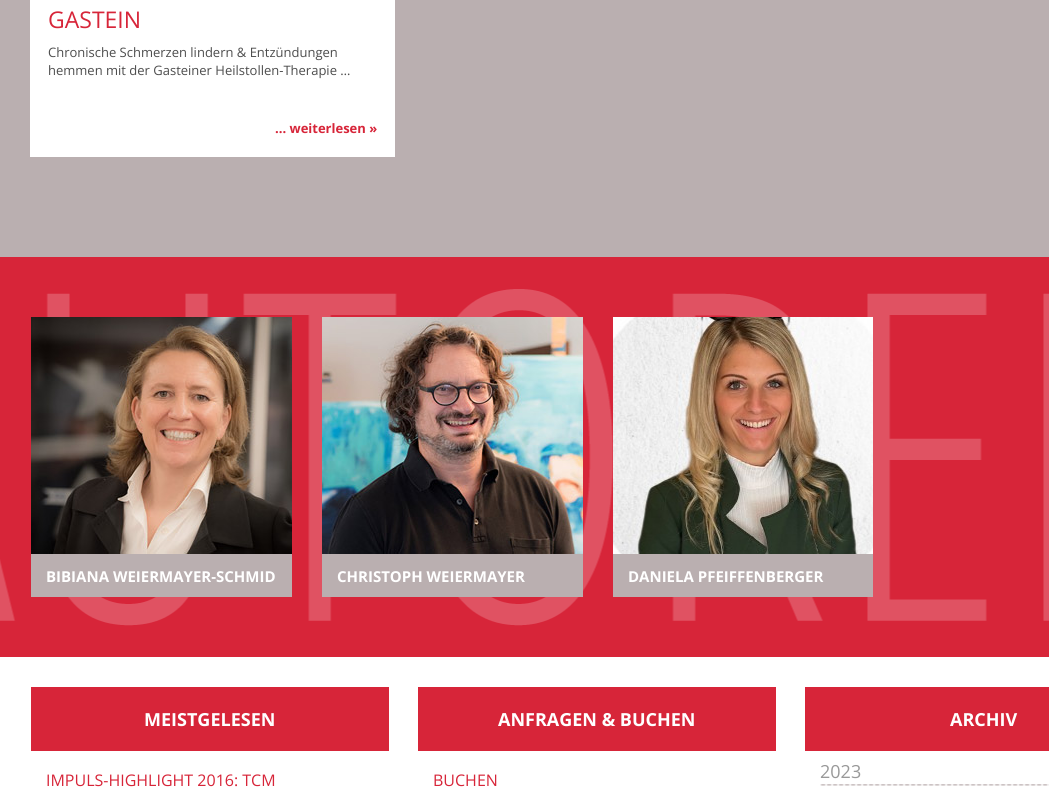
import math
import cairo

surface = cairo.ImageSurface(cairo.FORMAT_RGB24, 1049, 789)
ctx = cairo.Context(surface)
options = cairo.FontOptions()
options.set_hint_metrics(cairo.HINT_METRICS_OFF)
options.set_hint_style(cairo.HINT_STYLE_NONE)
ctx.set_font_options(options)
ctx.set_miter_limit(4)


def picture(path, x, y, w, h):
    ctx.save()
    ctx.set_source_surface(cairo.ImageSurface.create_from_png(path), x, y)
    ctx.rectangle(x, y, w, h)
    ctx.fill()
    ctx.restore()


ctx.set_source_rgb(0.729, 0.686, 0.69)
ctx.paint()
ctx.set_source_rgb(1, 1, 1)
ctx.rectangle(30, 0, 365, 157)
ctx.fill()
ctx.select_font_face("Open Sans")
ctx.set_font_size(23)
ctx.set_source_rgb(0.843, 0.145, 0.224)
ctx.move_to(48, 28)
ctx.show_text("GASTEIN")
ctx.set_font_size(13)
ctx.set_source_rgb(0.302, 0.302, 0.302)
ctx.move_to(48, 57)
ctx.show_text("Chronische Schmerzen lindern & Entzündungen")
ctx.move_to(48, 75)
ctx.show_text("hemmen mit der Gasteiner Heilstollen-Therapie …")
ctx.select_font_face("Open Sans", cairo.FONT_SLANT_NORMAL, cairo.FONT_WEIGHT_BOLD)
ctx.set_source_rgb(0.843, 0.145, 0.224)
ctx.move_to(275, 133)
ctx.show_text("... weiterlesen »")
ctx.rectangle(0, 257, 1049, 400)
ctx.fill()
picture("img1.png", 0, 289, 1049, 337)
picture("img2.png", 31, 317, 261, 237)
ctx.set_source_rgb(0.729, 0.686, 0.69)
ctx.rectangle(31, 554, 261, 43)
ctx.fill()
ctx.set_font_size(15)
ctx.set_source_rgb(1, 1, 1)
ctx.move_to(46, 582)
ctx.show_text("BIBIANA WEIERMAYER-SCHMID")
picture("img3.png", 322, 317, 261, 237)
ctx.set_source_rgb(0.729, 0.686, 0.69)
ctx.rectangle(322, 554, 261, 43)
ctx.fill()
ctx.set_source_rgb(1, 1, 1)
ctx.move_to(337, 582)
ctx.show_text("CHRISTOPH WEIERMAYER")
picture("img4.png", 613, 317, 260, 237)
ctx.set_source_rgb(0.729, 0.686, 0.69)
ctx.rectangle(613, 554, 260, 43)
ctx.fill()
ctx.set_source_rgb(1, 1, 1)
ctx.move_to(628, 582)
ctx.show_text("DANIELA PFEIFFENBERGER")
ctx.rectangle(0, 657, 1049, 132)
ctx.fill()
ctx.set_source_rgb(0.843, 0.145, 0.224)
ctx.rectangle(31, 687, 358, 64)
ctx.fill()
ctx.set_font_size(18)
ctx.set_source_rgb(1, 1, 1)
ctx.move_to(144, 726)
ctx.show_text("MEISTGELESEN")
ctx.select_font_face("Open Sans")
ctx.set_font_size(16)
ctx.set_source_rgb(0.843, 0.145, 0.224)
ctx.move_to(46, 786)
ctx.show_text("IMPULS-HIGHLIGHT 2016: TCM")
ctx.rectangle(418, 687, 358, 64)
ctx.fill()
ctx.select_font_face("Open Sans", cairo.FONT_SLANT_NORMAL, cairo.FONT_WEIGHT_BOLD)
ctx.set_font_size(18)
ctx.set_source_rgb(1, 1, 1)
ctx.move_to(498, 726)
ctx.show_text("ANFRAGEN & BUCHEN")
ctx.select_font_face("Open Sans")
ctx.set_font_size(16)
ctx.set_source_rgb(0.843, 0.145, 0.224)
ctx.move_to(433, 786)
ctx.show_text("BUCHEN")
ctx.rectangle(805, 687, 244, 64)
ctx.fill()
ctx.select_font_face("Open Sans", cairo.FONT_SLANT_NORMAL, cairo.FONT_WEIGHT_BOLD)
ctx.set_font_size(18)
ctx.set_source_rgb(1, 1, 1)
ctx.move_to(950, 726)
ctx.show_text("ARCHIV")
picture("img5.png", 820, 784, 229, 2)
ctx.select_font_face("Open Sans")
ctx.set_source_rgb(0.6, 0.6, 0.6)
ctx.move_to(820, 778)
ctx.show_text("2023")
surface.write_to_png("page.png")
